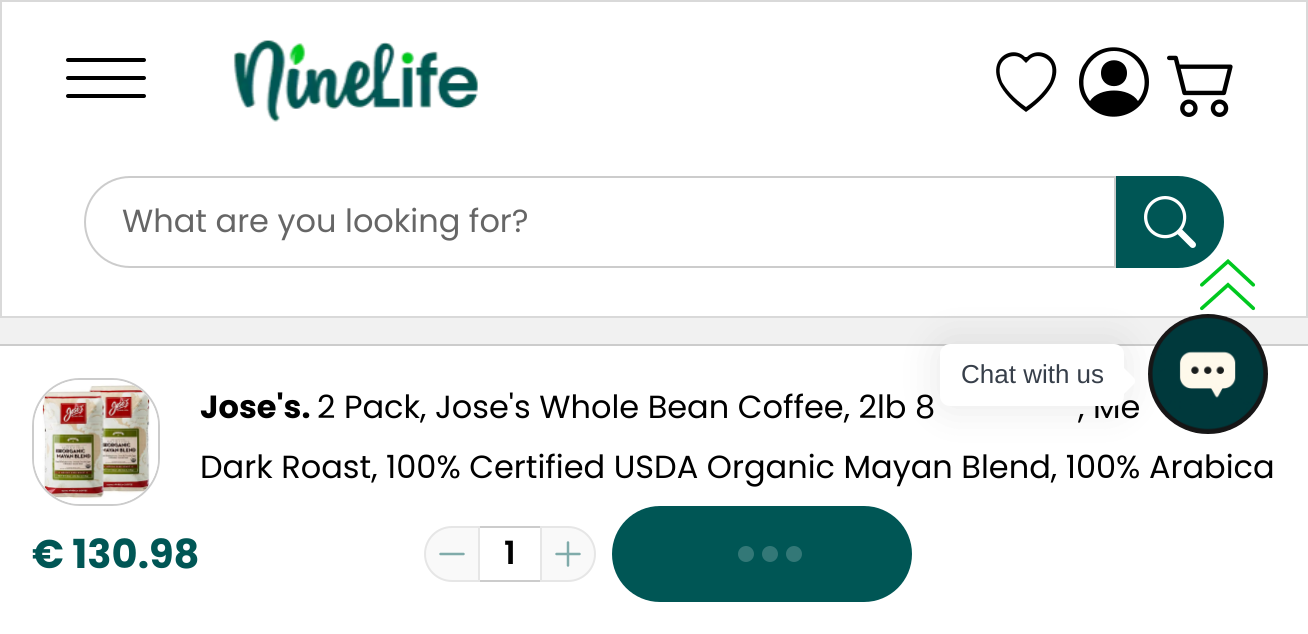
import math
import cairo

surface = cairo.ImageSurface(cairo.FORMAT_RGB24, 1308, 634)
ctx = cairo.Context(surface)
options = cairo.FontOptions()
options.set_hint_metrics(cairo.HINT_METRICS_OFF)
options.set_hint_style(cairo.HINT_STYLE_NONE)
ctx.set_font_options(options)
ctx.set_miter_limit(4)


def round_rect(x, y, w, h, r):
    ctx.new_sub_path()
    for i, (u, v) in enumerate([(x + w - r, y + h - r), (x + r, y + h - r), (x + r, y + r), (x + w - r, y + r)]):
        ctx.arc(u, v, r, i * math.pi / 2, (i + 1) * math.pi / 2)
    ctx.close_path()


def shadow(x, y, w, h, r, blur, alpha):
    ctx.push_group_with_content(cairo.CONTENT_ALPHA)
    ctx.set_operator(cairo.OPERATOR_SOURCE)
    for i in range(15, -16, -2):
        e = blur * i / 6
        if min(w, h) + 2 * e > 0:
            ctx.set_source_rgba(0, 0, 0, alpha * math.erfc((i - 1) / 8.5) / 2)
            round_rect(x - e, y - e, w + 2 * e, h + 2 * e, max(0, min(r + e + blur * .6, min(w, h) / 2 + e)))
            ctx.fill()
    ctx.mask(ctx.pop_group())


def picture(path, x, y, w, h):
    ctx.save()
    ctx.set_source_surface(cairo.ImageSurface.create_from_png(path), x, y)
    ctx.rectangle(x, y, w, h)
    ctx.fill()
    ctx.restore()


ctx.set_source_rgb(0.945, 0.945, 0.945)
ctx.paint()
ctx.set_source_rgb(1, 1, 1)
ctx.rectangle(1, 1, 1306, 316)
ctx.fill_preserve()
ctx.set_source_rgb(0.851, 0.851, 0.851)
ctx.stroke()
ctx.set_source_rgb(0, 0, 0)
round_rect(66, 58, 80, 4, 2)
ctx.fill()
round_rect(66, 76, 80, 4, 2)
ctx.fill()
round_rect(66, 94, 80, 4, 2)
ctx.fill()
picture("img1.png", 233, 40, 245, 82)
ctx.new_path()
ctx.move_to(1026, 63)
ctx.line_to(1023, 60)
ctx.curve_to(1017, 53, 1005, 56, 1001, 64)
ctx.curve_to(999, 68, 999, 74, 1002, 82)
ctx.curve_to(1006, 89, 1013, 98, 1026, 107)
ctx.curve_to(1039, 98, 1046, 89, 1050, 82)
ctx.curve_to(1053, 74, 1053, 68, 1051, 64)
ctx.curve_to(1047, 56, 1035, 53, 1029, 60)
ctx.close_path()
ctx.move_to(1026, 112)
ctx.curve_to(969, 71, 1008, 40, 1025, 57)
ctx.line_to(1026, 57)
ctx.line_to(1027, 57)
ctx.curve_to(1044, 40, 1084, 71, 1026, 112)
ctx.close_path()
ctx.fill()
ctx.new_path()
ctx.move_to(1127, 73)
ctx.curve_to(1127, 90.5, 1101, 90.5, 1101, 73)
ctx.curve_to(1101, 56, 1127, 56, 1127, 73)
ctx.close_path()
ctx.fill()
ctx.set_fill_rule(cairo.FILL_RULE_EVEN_ODD)
ctx.new_path()
ctx.move_to(1079, 82)
ctx.curve_to(1079, 75, 1081, 68, 1085, 63)
ctx.curve_to(1104, 34, 1149, 48, 1149, 82)
ctx.curve_to(1149, 116, 1104, 130, 1085, 101)
ctx.curve_to(1081, 96, 1079, 89, 1079, 82)
ctx.close_path()
ctx.move_to(1114, 51)
ctx.curve_to(1089, 51, 1074, 81, 1090, 101)
ctx.curve_to(1099, 87, 1129, 87, 1138, 101)
ctx.curve_to(1154, 81, 1139, 51, 1114, 51)
ctx.close_path()
ctx.fill()
picture("img2.png", 1167, 55, 66, 62)
ctx.new_path()
ctx.move_to(130, 177)
ctx.line_to(1115, 177)
ctx.line_to(1115, 267)
ctx.line_to(130, 267)
ctx.curve_to(105, 267, 85, 247, 85, 222)
ctx.curve_to(85, 197, 105, 177, 130, 177)
ctx.close_path()
ctx.set_source_rgb(0.8, 0.8, 0.8)
ctx.stroke()
ctx.select_font_face("Poppins")
ctx.set_font_size(32)
ctx.set_source_rgb(0.4, 0.4, 0.4)
ctx.move_to(122, 232)
ctx.show_text("What are you looking for?")
ctx.set_source_rgb(0, 0.337, 0.333)
ctx.new_path()
ctx.move_to(1116, 176)
ctx.line_to(1178, 176)
ctx.curve_to(1203.5, 176, 1224, 196.5, 1224, 222)
ctx.curve_to(1224, 247.5, 1203.5, 268, 1178, 268)
ctx.line_to(1116, 268)
ctx.close_path()
ctx.fill()
picture("img3.png", 1144, 196, 52, 52)
picture("img4.png", 1200, 259, 56, 52)
ctx.set_source_rgb(1, 1, 1)
ctx.rectangle(0, 346, 1308, 288)
ctx.fill()
ctx.set_source_rgb(0.8, 0.8, 0.8)
ctx.rectangle(0, 344, 1308, 2)
ctx.fill()
round_rect(33, 379, 126, 126, 47)
ctx.stroke()
picture("img5.png", 34, 380, 124, 124)
ctx.select_font_face("Poppins", cairo.FONT_SLANT_NORMAL, cairo.FONT_WEIGHT_BOLD)
ctx.set_source_rgb(0, 0, 0)
ctx.move_to(200, 418)
ctx.show_text("Jose's.")
ctx.select_font_face("Poppins")
ctx.move_to(317, 418)
ctx.show_text("2 Pack, Jose's Whole Bean Coffee, 2lb 8")
ctx.move_to(1078, 418)
ctx.show_text(", Me")
ctx.move_to(200, 478)
ctx.show_text("Dark Roast, 100% Certified USDA Organic Mayan Blend, 100% Arabica")
ctx.select_font_face("Poppins", cairo.FONT_SLANT_NORMAL, cairo.FONT_WEIGHT_BOLD)
ctx.set_font_size(40)
ctx.set_source_rgb(0, 0.337, 0.333)
ctx.move_to(32, 568)
ctx.show_text("€ 130.98")
ctx.set_source_rgb(0.973, 0.973, 0.973)
ctx.new_path()
ctx.move_to(452, 527)
ctx.line_to(479, 527)
ctx.line_to(479, 581)
ctx.line_to(452, 581)
ctx.curve_to(437, 581, 425, 569, 425, 554)
ctx.curve_to(425, 539, 437, 527, 452, 527)
ctx.close_path()
ctx.fill_preserve()
ctx.set_source_rgb(0.902, 0.902, 0.902)
ctx.stroke()
ctx.new_path()
ctx.move_to(440.5, 554)
ctx.line_to(463.5, 554)
ctx.set_source_rgb(0.502, 0.671, 0.667)
ctx.set_line_width(2.5)
ctx.set_line_cap(cairo.LINE_CAP_ROUND)
ctx.set_line_join(cairo.LINE_JOIN_ROUND)
ctx.stroke()
ctx.set_source_rgb(0.8, 0.8, 0.8)
ctx.rectangle(480, 526, 60, 2)
ctx.fill()
ctx.rectangle(480, 580, 60, 2)
ctx.fill()
ctx.select_font_face("Poppins SemiBold")
ctx.set_font_size(32)
ctx.set_source_rgb(0, 0, 0)
ctx.move_to(504, 564)
ctx.show_text("1")
ctx.set_source_rgb(0.973, 0.973, 0.973)
ctx.new_path()
ctx.move_to(541, 527)
ctx.line_to(568, 527)
ctx.curve_to(583, 527, 595, 539, 595, 554)
ctx.curve_to(595, 569, 583, 581, 568, 581)
ctx.line_to(541, 581)
ctx.close_path()
ctx.fill_preserve()
ctx.set_source_rgb(0.902, 0.902, 0.902)
ctx.set_line_width(2)
ctx.set_line_cap(cairo.LINE_CAP_BUTT)
ctx.set_line_join(cairo.LINE_JOIN_MITER)
ctx.stroke()
ctx.new_path()
ctx.move_to(568, 542.5)
ctx.line_to(568, 565.5)
ctx.move_to(556.5, 554)
ctx.line_to(579.5, 554)
ctx.set_source_rgb(0.502, 0.671, 0.667)
ctx.set_line_width(2.5)
ctx.set_line_cap(cairo.LINE_CAP_ROUND)
ctx.set_line_join(cairo.LINE_JOIN_ROUND)
ctx.stroke()
ctx.set_source_rgb(0, 0.337, 0.333)
round_rect(612, 506, 300, 96, 48)
ctx.fill()
ctx.set_source_rgb(0.2, 0.471, 0.467)
ctx.arc(746, 554, 8, 0, 2 * math.pi)
ctx.fill()
ctx.arc(770, 554, 8, 0, 2 * math.pi)
ctx.fill()
ctx.arc(794, 554, 8, 0, 2 * math.pi)
ctx.fill()
picture("img6.png", 1148, 314, 120, 120)
ctx.set_source_rgb(0, 0, 0)
shadow(940, 344, 184, 62, 10, 20, 0.1)
ctx.set_source_rgb(1, 1, 1)
round_rect(940, 344, 184, 62, 10)
ctx.fill()
ctx.select_font_face("Liberation Sans")
ctx.set_font_size(26)
ctx.set_source_rgb(0.216, 0.247, 0.29)
ctx.move_to(961, 383)
ctx.show_text("Chat with us")
ctx.set_source_rgb(1, 1, 1)
ctx.set_fill_rule(cairo.FILL_RULE_WINDING)
ctx.new_path()
ctx.move_to(1123, 367)
ctx.line_to(1134, 378)
ctx.curve_to(1135.5, 379.5, 1135.5, 382.5, 1134, 384)
ctx.line_to(1123, 395)
ctx.curve_to(1121.5, 396.5, 1118.5, 396.5, 1117, 395)
ctx.line_to(1106, 384)
ctx.curve_to(1104.5, 382.5, 1104.5, 379.5, 1106, 378)
ctx.line_to(1117, 367)
ctx.curve_to(1118.5, 365.5, 1121.5, 365.5, 1123, 367)
ctx.close_path()
ctx.fill()
surface.write_to_png("page.png")
